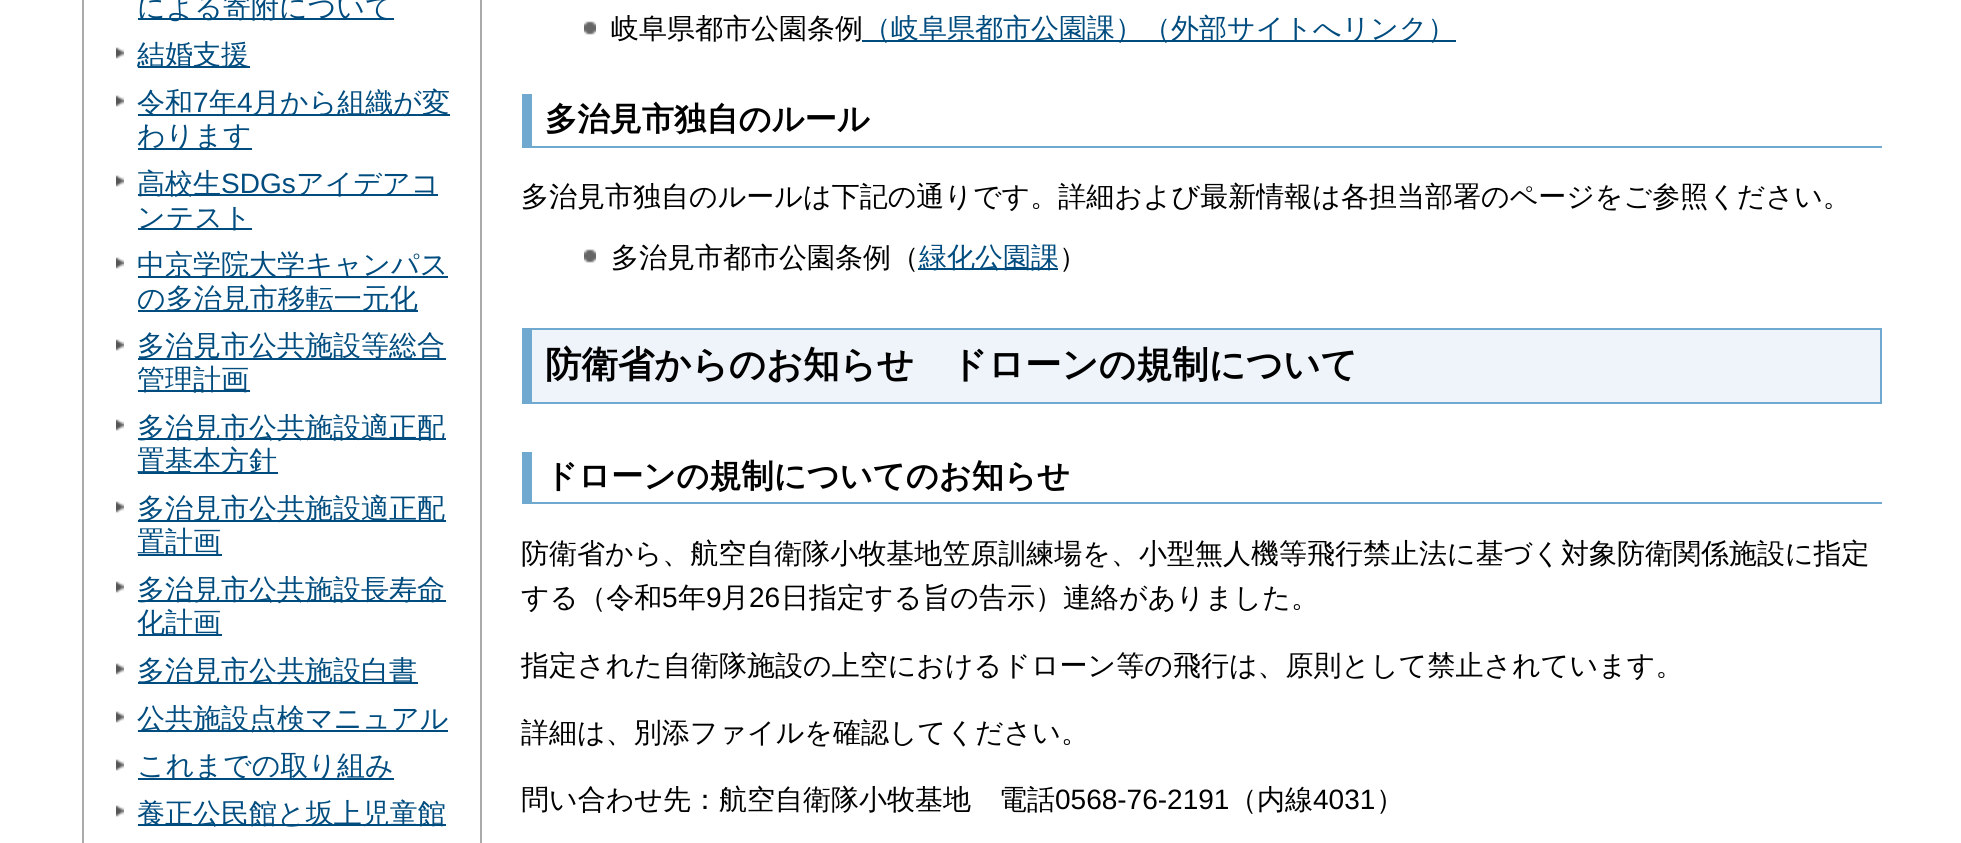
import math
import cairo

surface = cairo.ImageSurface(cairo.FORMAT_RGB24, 1961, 843)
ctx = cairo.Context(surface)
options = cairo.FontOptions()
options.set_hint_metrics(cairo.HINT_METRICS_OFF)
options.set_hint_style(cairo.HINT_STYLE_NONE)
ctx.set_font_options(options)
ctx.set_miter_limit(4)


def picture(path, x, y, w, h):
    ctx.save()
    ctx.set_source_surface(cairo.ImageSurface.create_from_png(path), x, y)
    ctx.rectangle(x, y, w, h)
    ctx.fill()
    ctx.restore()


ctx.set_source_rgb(1, 1, 1)
ctx.paint()
ctx.rectangle(83, -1, 398, 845)
ctx.set_source_rgb(0.667, 0.667, 0.667)
ctx.stroke()
ctx.set_source_rgb(0, 0.298, 0.498)
ctx.rectangle(138, 18, 256, 2)
ctx.fill()
ctx.select_font_face("WenQuanYi Zen Hei Medium")
ctx.set_font_size(28)
ctx.move_to(137, 17)
ctx.show_text("による寄附について")
picture("img1.png", 116, 47, 8, 12)
ctx.rectangle(138, 66, 112, 2)
ctx.fill()
ctx.move_to(137, 64)
ctx.show_text("結婚支援")
picture("img1.png", 116, 95, 8, 12)
ctx.rectangle(138, 114, 312, 2)
ctx.fill()
ctx.move_to(137, 112)
ctx.show_text("令和")
ctx.select_font_face("Liberation Sans")
ctx.move_to(193, 112)
ctx.show_text("7")
ctx.select_font_face("WenQuanYi Zen Hei Medium")
ctx.move_to(209, 112)
ctx.show_text("年")
ctx.select_font_face("Liberation Sans")
ctx.move_to(237, 112)
ctx.show_text("4")
ctx.select_font_face("WenQuanYi Zen Hei Medium")
ctx.move_to(252, 112)
ctx.show_text("月から組織が変")
ctx.rectangle(138, 148, 114, 2)
ctx.fill()
ctx.move_to(137, 145)
ctx.show_text("わります")
picture("img1.png", 116, 175, 8, 12)
ctx.rectangle(138, 194, 300, 2)
ctx.fill()
ctx.move_to(137, 193)
ctx.show_text("高校生")
ctx.select_font_face("Liberation Sans")
ctx.move_to(221, 193)
ctx.show_text("SDGs")
ctx.select_font_face("WenQuanYi Zen Hei Medium")
ctx.move_to(296, 193)
ctx.show_text("アイデアコ")
ctx.rectangle(138, 228, 114, 2)
ctx.fill()
ctx.move_to(137, 227)
ctx.show_text("ンテスト")
picture("img1.png", 116, 257, 8, 12)
ctx.rectangle(138, 276, 310, 2)
ctx.fill()
ctx.move_to(137, 274)
ctx.show_text("中京学院大学キャンパス")
ctx.rectangle(138, 310, 280, 2)
ctx.fill()
ctx.move_to(137, 308)
ctx.show_text("の多治見市移転一元化")
picture("img1.png", 116, 339, 8, 12)
ctx.rectangle(138, 358, 308, 2)
ctx.fill()
ctx.move_to(137, 355)
ctx.show_text("多治見市公共施設等総合")
ctx.rectangle(138, 390, 112, 2)
ctx.fill()
ctx.move_to(137, 389)
ctx.show_text("管理計画")
picture("img1.png", 116, 419, 8, 12)
ctx.rectangle(138, 438, 308, 2)
ctx.fill()
ctx.move_to(137, 437)
ctx.show_text("多治見市公共施設適正配")
ctx.rectangle(138, 472, 140, 2)
ctx.fill()
ctx.move_to(137, 470)
ctx.show_text("置基本方針")
picture("img1.png", 116, 501, 8, 12)
ctx.rectangle(138, 520, 308, 2)
ctx.fill()
ctx.move_to(137, 518)
ctx.show_text("多治見市公共施設適正配")
ctx.rectangle(138, 554, 84, 2)
ctx.fill()
ctx.move_to(137, 551)
ctx.show_text("置計画")
picture("img1.png", 116, 581, 8, 12)
ctx.rectangle(138, 600, 308, 2)
ctx.fill()
ctx.move_to(137, 599)
ctx.show_text("多治見市公共施設長寿命")
ctx.rectangle(138, 634, 84, 2)
ctx.fill()
ctx.move_to(137, 632)
ctx.show_text("化計画")
picture("img1.png", 116, 663, 8, 12)
ctx.rectangle(138, 682, 280, 2)
ctx.fill()
ctx.move_to(137, 680)
ctx.show_text("多治見市公共施設白書")
picture("img1.png", 116, 711, 8, 12)
ctx.rectangle(138, 730, 310, 2)
ctx.fill()
ctx.move_to(137, 728)
ctx.show_text("公共施設点検マニュアル")
picture("img1.png", 116, 759, 8, 12)
ctx.rectangle(138, 778, 256, 2)
ctx.fill()
ctx.move_to(137, 775)
ctx.show_text("これまでの取り組み")
picture("img1.png", 116, 805, 8, 12)
ctx.rectangle(138, 824, 308, 2)
ctx.fill()
ctx.move_to(137, 823)
ctx.show_text("養正公民館と坂上児童館")
picture("img2.png", 584, 21, 12, 14)
ctx.set_source_rgb(0, 0, 0)
ctx.move_to(611, 38)
ctx.show_text("岐阜県都市公園条例")
ctx.set_source_rgb(0, 0.298, 0.498)
ctx.rectangle(862, 40, 594, 2)
ctx.fill()
ctx.move_to(863, 38)
ctx.show_text("（岐阜県都市公園課）（外部サイトへリンク）")
ctx.set_source_rgb(0.439, 0.663, 0.812)
ctx.rectangle(532, 146, 1350, 2)
ctx.fill()
ctx.rectangle(522, 94, 10, 54)
ctx.fill()
ctx.select_font_face("WenQuanYi Zen Hei", cairo.FONT_SLANT_NORMAL, cairo.FONT_WEIGHT_BOLD)
ctx.set_font_size(32.25)
ctx.set_source_rgb(0, 0, 0)
ctx.move_to(545, 130)
ctx.show_text("多治見市独自のルール")
ctx.select_font_face("WenQuanYi Zen Hei Medium")
ctx.set_font_size(28)
ctx.move_to(521, 206)
ctx.show_text("多治見市独自のルールは下記の通りです。詳細および最新情報は各担当部署のページをご参照ください。")
picture("img2.png", 584, 249, 12, 14)
ctx.move_to(611, 267)
ctx.show_text("多治見市都市公園条例（")
ctx.set_source_rgb(0, 0.298, 0.498)
ctx.rectangle(918, 268, 140, 2)
ctx.fill()
ctx.move_to(919, 267)
ctx.show_text("緑化公園課")
ctx.set_source_rgb(0, 0, 0)
ctx.move_to(1059, 267)
ctx.show_text("）")
ctx.set_source_rgb(0.937, 0.957, 0.98)
ctx.rectangle(532, 330, 1348, 72)
ctx.fill()
ctx.set_source_rgb(0.439, 0.663, 0.812)
ctx.rectangle(532, 328, 1350, 2)
ctx.fill()
ctx.rectangle(1880, 328, 2, 76)
ctx.fill()
ctx.rectangle(532, 402, 1350, 2)
ctx.fill()
ctx.rectangle(522, 328, 10, 76)
ctx.fill()
ctx.select_font_face("WenQuanYi Zen Hei", cairo.FONT_SLANT_NORMAL, cairo.FONT_WEIGHT_BOLD)
ctx.set_font_size(36.4)
ctx.set_source_rgb(0, 0, 0)
ctx.move_to(545, 377)
ctx.show_text("防衛省からのお知らせ　ドローンの規制について")
ctx.set_source_rgb(0.439, 0.663, 0.812)
ctx.rectangle(532, 502, 1350, 2)
ctx.fill()
ctx.rectangle(522, 452, 10, 52)
ctx.fill()
ctx.set_font_size(32.25)
ctx.set_source_rgb(0, 0, 0)
ctx.move_to(545, 487)
ctx.show_text("ドローンの規制についてのお知らせ")
ctx.select_font_face("WenQuanYi Zen Hei Medium")
ctx.set_font_size(28)
ctx.move_to(521, 563)
ctx.show_text("防衛省から、航空自衛隊小牧基地笠原訓練場を、小型無人機等飛行禁止法に基づく対象防衛関係施設に指定")
ctx.move_to(521, 607)
ctx.show_text("する（令和")
ctx.select_font_face("Liberation Sans")
ctx.move_to(662, 607)
ctx.show_text("5")
ctx.select_font_face("WenQuanYi Zen Hei Medium")
ctx.move_to(678, 607)
ctx.show_text("年")
ctx.select_font_face("Liberation Sans")
ctx.move_to(706, 607)
ctx.show_text("9")
ctx.select_font_face("WenQuanYi Zen Hei Medium")
ctx.move_to(721, 607)
ctx.show_text("月")
ctx.select_font_face("Liberation Sans")
ctx.move_to(749, 607)
ctx.show_text("26")
ctx.select_font_face("WenQuanYi Zen Hei Medium")
ctx.move_to(781, 607)
ctx.show_text("日指定する旨の告示）連絡がありました。")
ctx.move_to(521, 675)
ctx.show_text("指定された自衛隊施設の上空におけるドローン等の飛行は、原則として禁止されています。")
ctx.move_to(521, 742)
ctx.show_text("詳細は、別添ファイルを確認してください。")
ctx.move_to(521, 809)
ctx.show_text("問い合わせ先：航空自衛隊小牧基地　電話")
ctx.select_font_face("Liberation Sans")
ctx.move_to(1055, 809)
ctx.show_text("0568-76-2191")
ctx.select_font_face("WenQuanYi Zen Hei Medium")
ctx.move_to(1229, 809)
ctx.show_text("（内線")
ctx.select_font_face("Liberation Sans")
ctx.move_to(1313, 809)
ctx.show_text("4031")
ctx.select_font_face("WenQuanYi Zen Hei Medium")
ctx.move_to(1376, 809)
ctx.show_text("）")
surface.write_to_png("page.png")
